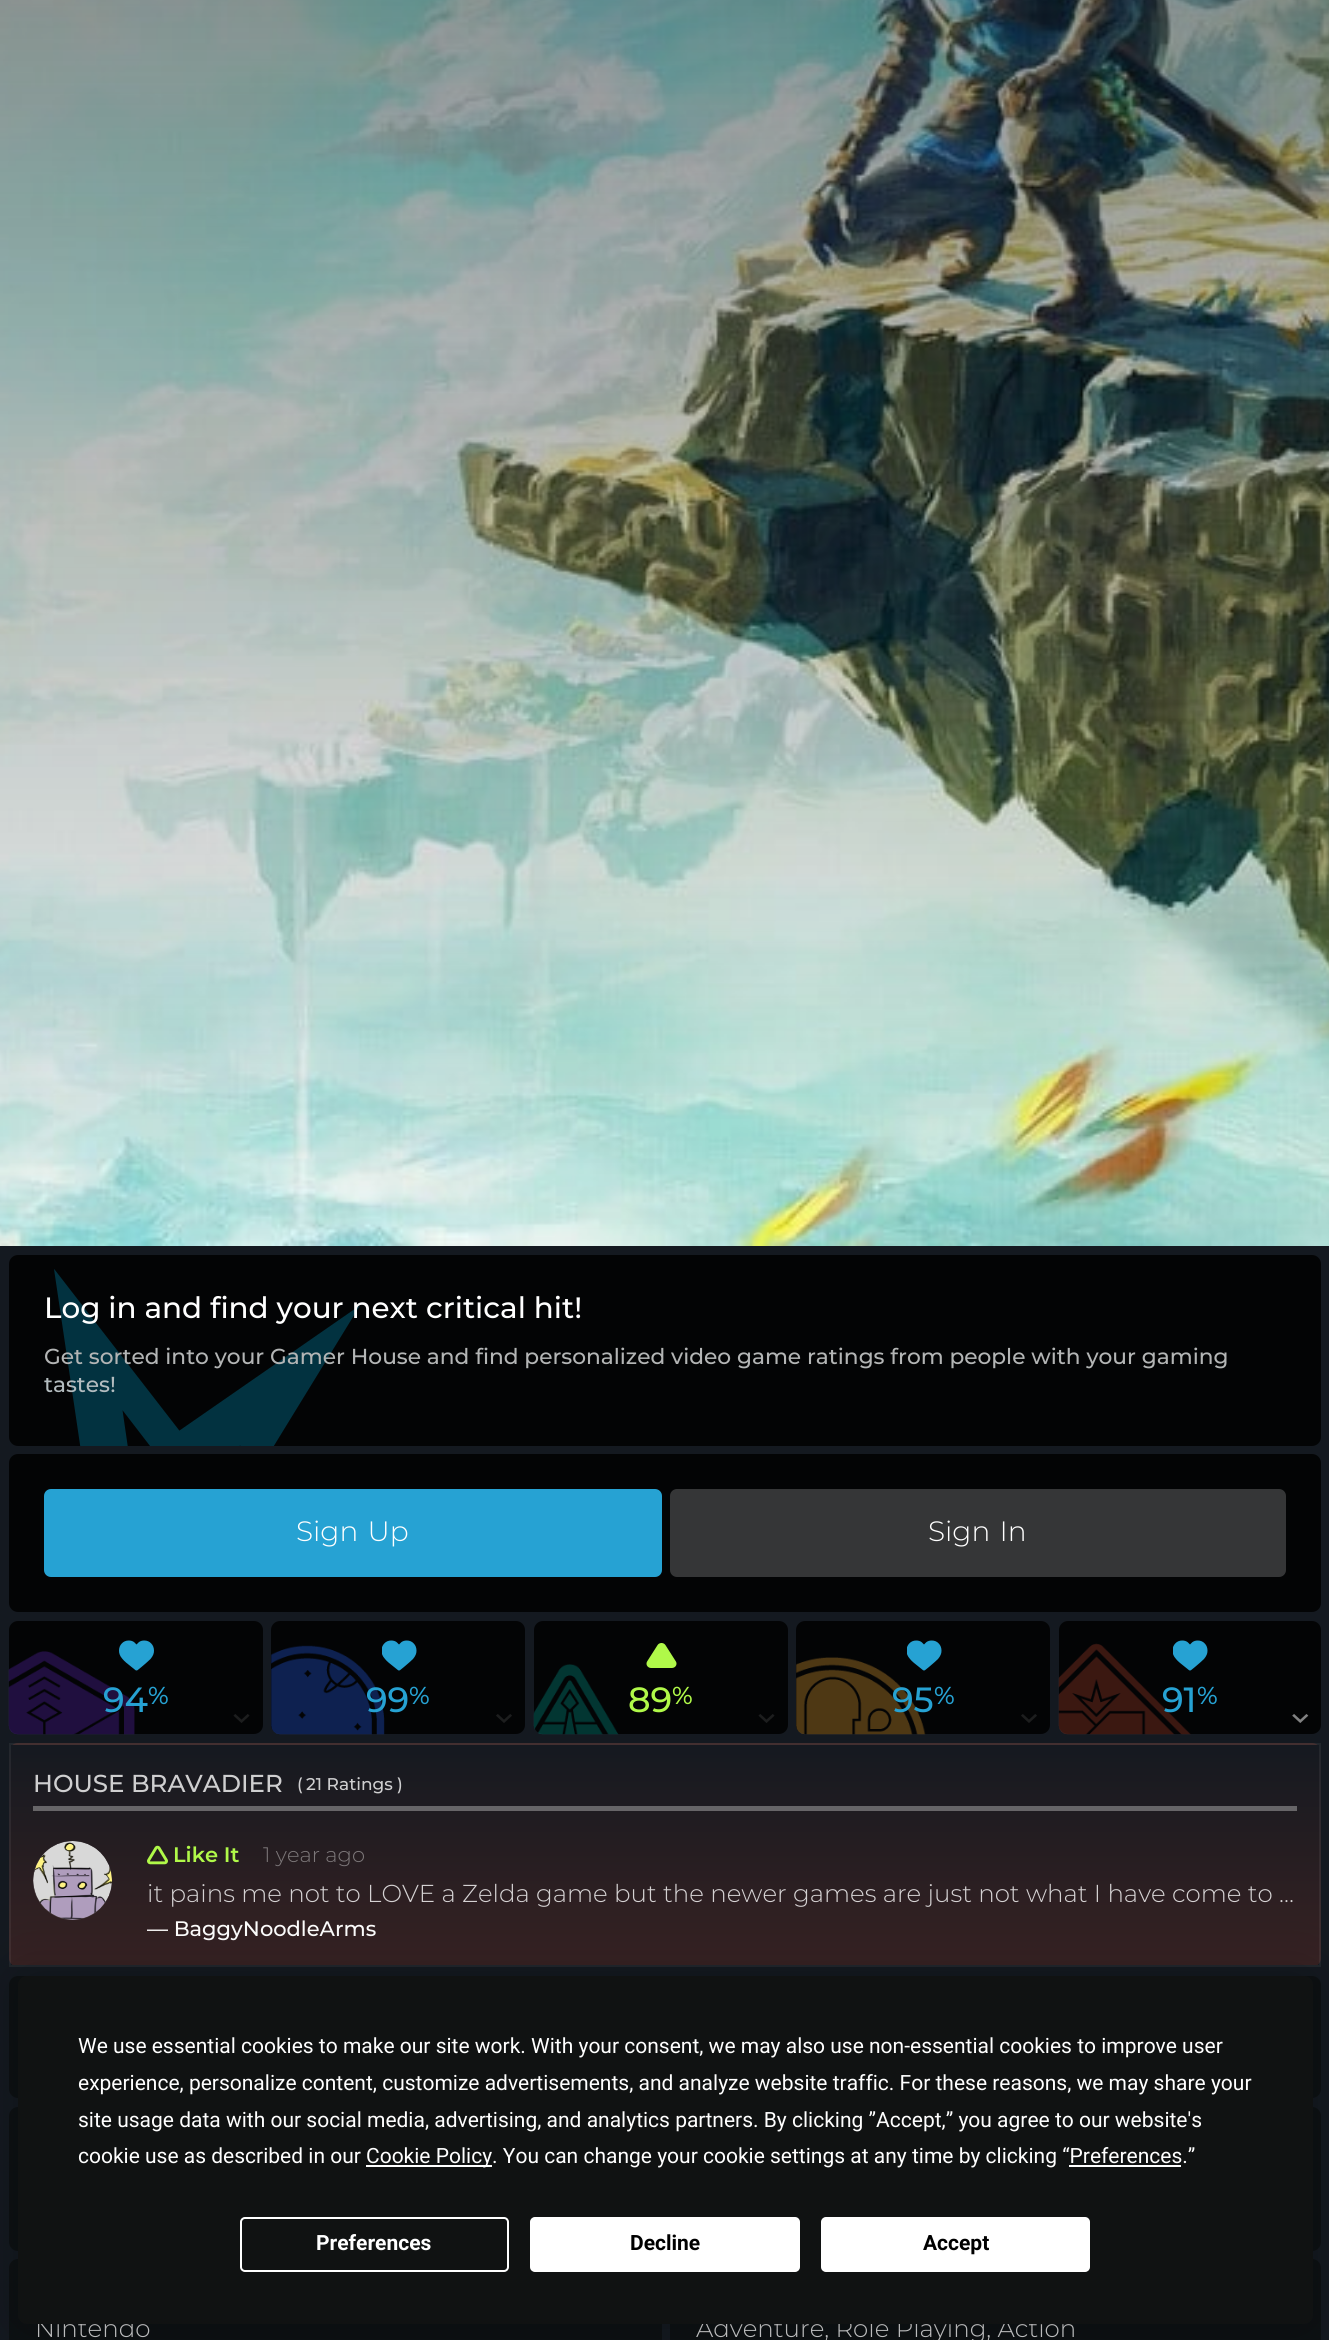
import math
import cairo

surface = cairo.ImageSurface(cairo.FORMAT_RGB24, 1329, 2340)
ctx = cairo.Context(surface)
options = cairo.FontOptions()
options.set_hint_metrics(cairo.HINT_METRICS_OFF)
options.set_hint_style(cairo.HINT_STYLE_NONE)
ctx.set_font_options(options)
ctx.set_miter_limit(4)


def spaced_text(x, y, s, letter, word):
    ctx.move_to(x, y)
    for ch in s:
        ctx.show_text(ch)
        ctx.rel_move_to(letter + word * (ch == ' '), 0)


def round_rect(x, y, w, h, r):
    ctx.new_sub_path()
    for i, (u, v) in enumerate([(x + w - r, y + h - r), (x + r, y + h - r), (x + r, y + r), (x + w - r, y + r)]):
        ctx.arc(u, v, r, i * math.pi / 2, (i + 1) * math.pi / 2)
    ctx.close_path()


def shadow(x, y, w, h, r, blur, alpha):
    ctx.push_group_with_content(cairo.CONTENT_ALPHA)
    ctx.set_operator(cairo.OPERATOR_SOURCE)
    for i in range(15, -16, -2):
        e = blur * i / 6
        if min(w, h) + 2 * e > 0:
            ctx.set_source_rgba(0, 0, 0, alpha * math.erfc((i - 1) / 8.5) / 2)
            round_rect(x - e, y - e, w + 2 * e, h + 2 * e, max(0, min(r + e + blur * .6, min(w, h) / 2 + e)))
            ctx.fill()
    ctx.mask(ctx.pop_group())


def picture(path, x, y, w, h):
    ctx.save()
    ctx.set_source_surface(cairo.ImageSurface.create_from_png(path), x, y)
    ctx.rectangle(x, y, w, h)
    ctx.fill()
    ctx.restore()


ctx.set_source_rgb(0.082, 0.098, 0.125)
ctx.paint()
picture("img1.png", 0, 0, 1329, 1246)
ctx.set_source_rgb(0.012, 0.016, 0.02)
round_rect(9, 1255, 1312, 191, 9)
ctx.fill()
picture("img2.png", 54, 1269, 306, 177)
ctx.select_font_face("Montserrat Medium")
ctx.set_font_size(29.4)
ctx.set_source_rgb(1, 1, 1)
ctx.move_to(44, 1318)
ctx.show_text("Log in and find your next critical hit!")
ctx.set_font_size(21.7)
ctx.set_source_rgb(0.702, 0.71, 0.71)
ctx.move_to(44, 1364)
ctx.show_text("Get sorted into your Gamer House and find personalized video game ratings from people with your gaming")
ctx.set_source_rgb(0.702, 0.737, 0.749)
ctx.move_to(44, 1392)
ctx.show_text("tastes!")
ctx.set_source_rgb(0.012, 0.016, 0.02)
round_rect(9, 1454, 1312, 158, 9)
ctx.fill()
ctx.set_source_rgb(0.149, 0.635, 0.827)
round_rect(44, 1489, 618, 88, 7)
ctx.fill()
ctx.select_font_face("Montserrat Light")
ctx.set_font_size(28)
ctx.set_source_rgb(1, 1, 1)
spaced_text(296, 1541, "Sign Up", 0, 2)
ctx.set_source_rgb(0.208, 0.212, 0.216)
round_rect(670, 1489, 616, 88, 7)
ctx.fill()
ctx.set_source_rgb(1, 1, 1)
spaced_text(928, 1541, "Sign In", 0, 2)
ctx.set_source_rgb(0.012, 0.016, 0.02)
round_rect(9, 1621, 254, 113, 9)
ctx.fill()
picture("img3.png", 8, 1651, 127, 84)
picture("img4.png", 119, 1640, 35, 31)
ctx.select_font_face("Montserrat Medium")
ctx.set_font_size(35)
ctx.set_source_rgb(0.149, 0.635, 0.827)
ctx.move_to(103, 1712)
ctx.show_text("94")
ctx.set_font_size(24.5)
ctx.move_to(148, 1704)
ctx.show_text("%")
picture("img5.png", 233, 1714, 17, 9)
ctx.set_source_rgb(0.012, 0.016, 0.02)
round_rect(271, 1621, 254, 113, 9)
ctx.fill()
picture("img6.png", 271, 1645, 114, 90)
picture("img7.png", 382, 1640, 35, 31)
ctx.set_font_size(35)
ctx.set_source_rgb(0.149, 0.635, 0.827)
ctx.move_to(366, 1712)
ctx.show_text("99")
ctx.set_font_size(24.5)
ctx.move_to(409, 1704)
ctx.show_text("%")
picture("img8.png", 496, 1714, 16, 9)
ctx.set_source_rgb(0.012, 0.016, 0.02)
round_rect(534, 1621, 254, 113, 9)
ctx.fill()
picture("img9.png", 533, 1664, 86, 71)
picture("img10.png", 646, 1643, 31, 25)
ctx.set_font_size(35)
ctx.set_source_rgb(0.69, 0.976, 0.286)
ctx.move_to(628, 1712)
ctx.show_text("89")
ctx.set_font_size(24.5)
ctx.move_to(672, 1704)
ctx.show_text("%")
picture("img5.png", 758, 1714, 17, 9)
ctx.set_source_rgb(0.012, 0.016, 0.02)
round_rect(796, 1621, 254, 113, 9)
ctx.fill()
picture("img11.png", 796, 1657, 130, 78)
picture("img7.png", 907, 1640, 35, 31)
ctx.set_font_size(35)
ctx.set_source_rgb(0.149, 0.635, 0.827)
ctx.move_to(892, 1712)
ctx.show_text("95")
ctx.set_font_size(24.5)
ctx.move_to(934, 1704)
ctx.show_text("%")
picture("img8.png", 1021, 1714, 16, 9)
ctx.set_source_rgb(0.012, 0.016, 0.02)
round_rect(1059, 1621, 262, 113, 9)
ctx.fill()
picture("img12.png", 1058, 1643, 133, 92)
picture("img7.png", 1173, 1640, 35, 31)
ctx.set_font_size(35)
ctx.set_source_rgb(0.149, 0.635, 0.827)
ctx.move_to(1162, 1712)
ctx.show_text("91")
ctx.set_font_size(24.5)
ctx.move_to(1197, 1704)
ctx.show_text("%")
picture("img13.png", 1292, 1714, 17, 9)
ctx.save()
round_rect(9, 1743, 1312, 224, 9)
ctx.clip()
gradient = cairo.LinearGradient(665, 1745, 665, 1524)
gradient.add_color_stop_rgba(0, 0.216, 0.133, 0.137, 1)
gradient.add_color_stop_rgba(1, 0.082, 0.098, 0.125, 1)
ctx.set_source(gradient)
ctx.rectangle(9, 1743, 1312, 2)
ctx.fill()
gradient = cairo.LinearGradient(665, 1965, 665, 1745)
gradient.add_color_stop_rgba(0, 0.216, 0.133, 0.137, 1)
gradient.add_color_stop_rgba(1, 0.082, 0.098, 0.125, 1)
ctx.set_source(gradient)
ctx.rectangle(9, 1745, 1312, 220)
ctx.fill()
ctx.restore()
ctx.rectangle(10, 1744, 1310, 222)
ctx.set_source_rgba(1, 1, 1, 0.06)
ctx.stroke()
ctx.set_source_rgb(0.404, 0.396, 0.408)
ctx.rectangle(33, 1806, 1264, 5)
ctx.fill()
ctx.set_source_rgb(0.812, 0.812, 0.816)
ctx.move_to(33, 1792)
ctx.show_text("HOUSE BRAVADIER")
ctx.set_font_size(17)
ctx.move_to(297, 1790)
ctx.show_text("(")
ctx.move_to(306, 1790)
ctx.show_text("21 Ratings")
ctx.move_to(397, 1790)
ctx.show_text(")")
ctx.set_source_rgba(0.98, 0.98, 0.98, 0.2)
ctx.new_path()
ctx.arc(72.5, 1880.5, 39.5, 0, 2 * math.pi)
ctx.fill()
picture("img14.png", 33, 1841, 80, 79)
picture("img15.png", 147, 1845, 21, 20)
ctx.select_font_face("Montserrat SemiBold")
ctx.set_font_size(21)
ctx.set_source_rgb(0.69, 0.976, 0.286)
ctx.move_to(173, 1862)
ctx.show_text("Like It")
ctx.select_font_face("Montserrat Light")
ctx.set_source_rgb(0.49, 0.471, 0.478)
ctx.move_to(263, 1862)
ctx.show_text("1 year ago")
ctx.set_font_size(24.5)
ctx.set_source_rgb(0.835, 0.824, 0.827)
ctx.move_to(147, 1902)
ctx.show_text("it pains me not to LOVE a Zelda game but the newer games are just not what I have come to …")
ctx.select_font_face("Montserrat Medium")
ctx.set_font_size(21)
ctx.set_source_rgb(1, 1, 1)
ctx.move_to(147, 1936)
ctx.show_text("— BaggyNoodleArms")
ctx.set_source_rgb(0.051, 0.067, 0.078)
round_rect(9, 1976, 1312, 122, 9)
ctx.fill()
round_rect(9, 2107, 653, 144, 9)
ctx.fill()
round_rect(670, 2107, 651, 144, 9)
ctx.fill()
round_rect(9, 2259, 653, 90, 9)
ctx.fill()
ctx.select_font_face("Montserrat Light")
ctx.set_font_size(24.5)
ctx.set_source_rgb(0.812, 0.812, 0.816)
ctx.move_to(35, 2337)
ctx.show_text("Nintendo")
ctx.set_source_rgb(0.051, 0.067, 0.078)
round_rect(670, 2259, 651, 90, 9)
ctx.fill()
ctx.set_source_rgb(0.812, 0.812, 0.816)
ctx.move_to(696, 2337)
ctx.show_text("Adventure, Role Playing, Action")
ctx.set_source_rgb(0, 0, 0)
shadow(18, 1976, 1295, 348, 9, 30.5, 0.25)
ctx.set_source_rgb(0.063, 0.071, 0.071)
round_rect(18, 1976, 1295, 348, 9)
ctx.fill()
ctx.select_font_face("Roboto")
ctx.set_font_size(21)
ctx.set_source_rgb(1, 1, 1)
ctx.move_to(78, 2053)
ctx.show_text("We use essential cookies to make our site work. With your consent, we may also use non-essential cookies to improve user")
ctx.move_to(78, 2090)
ctx.show_text("experience, personalize content, customize advertisements, and analyze website traffic. For these reasons, we may share your")
ctx.move_to(78, 2127)
ctx.show_text("site usage data with our social media, advertising, and analytics partners. By clicking ”Accept,” you agree to our website's")
ctx.move_to(78, 2163)
ctx.show_text("cookie use as described in our")
ctx.rectangle(366, 2165, 126, 2)
ctx.fill()
ctx.move_to(366, 2163)
ctx.show_text("Cookie Policy. You can change your cookie settings at any time by clicking “Preferences.”")
ctx.rectangle(1069, 2165, 112, 2)
ctx.fill()
round_rect(241, 2218, 267, 53, 4)
ctx.stroke()
ctx.select_font_face("Roboto", cairo.FONT_SLANT_NORMAL, cairo.FONT_WEIGHT_BOLD)
ctx.move_to(316, 2250)
ctx.show_text("Preferences")
round_rect(531, 2218, 268, 53, 4)
ctx.fill_preserve()
ctx.stroke()
ctx.set_source_rgb(0, 0, 0)
ctx.move_to(630, 2250)
ctx.show_text("Decline")
ctx.set_source_rgb(1, 1, 1)
round_rect(822, 2218, 267, 53, 4)
ctx.fill_preserve()
ctx.stroke()
ctx.set_source_rgb(0, 0, 0)
ctx.move_to(923, 2250)
ctx.show_text("Accept")
surface.write_to_png("page.png")
